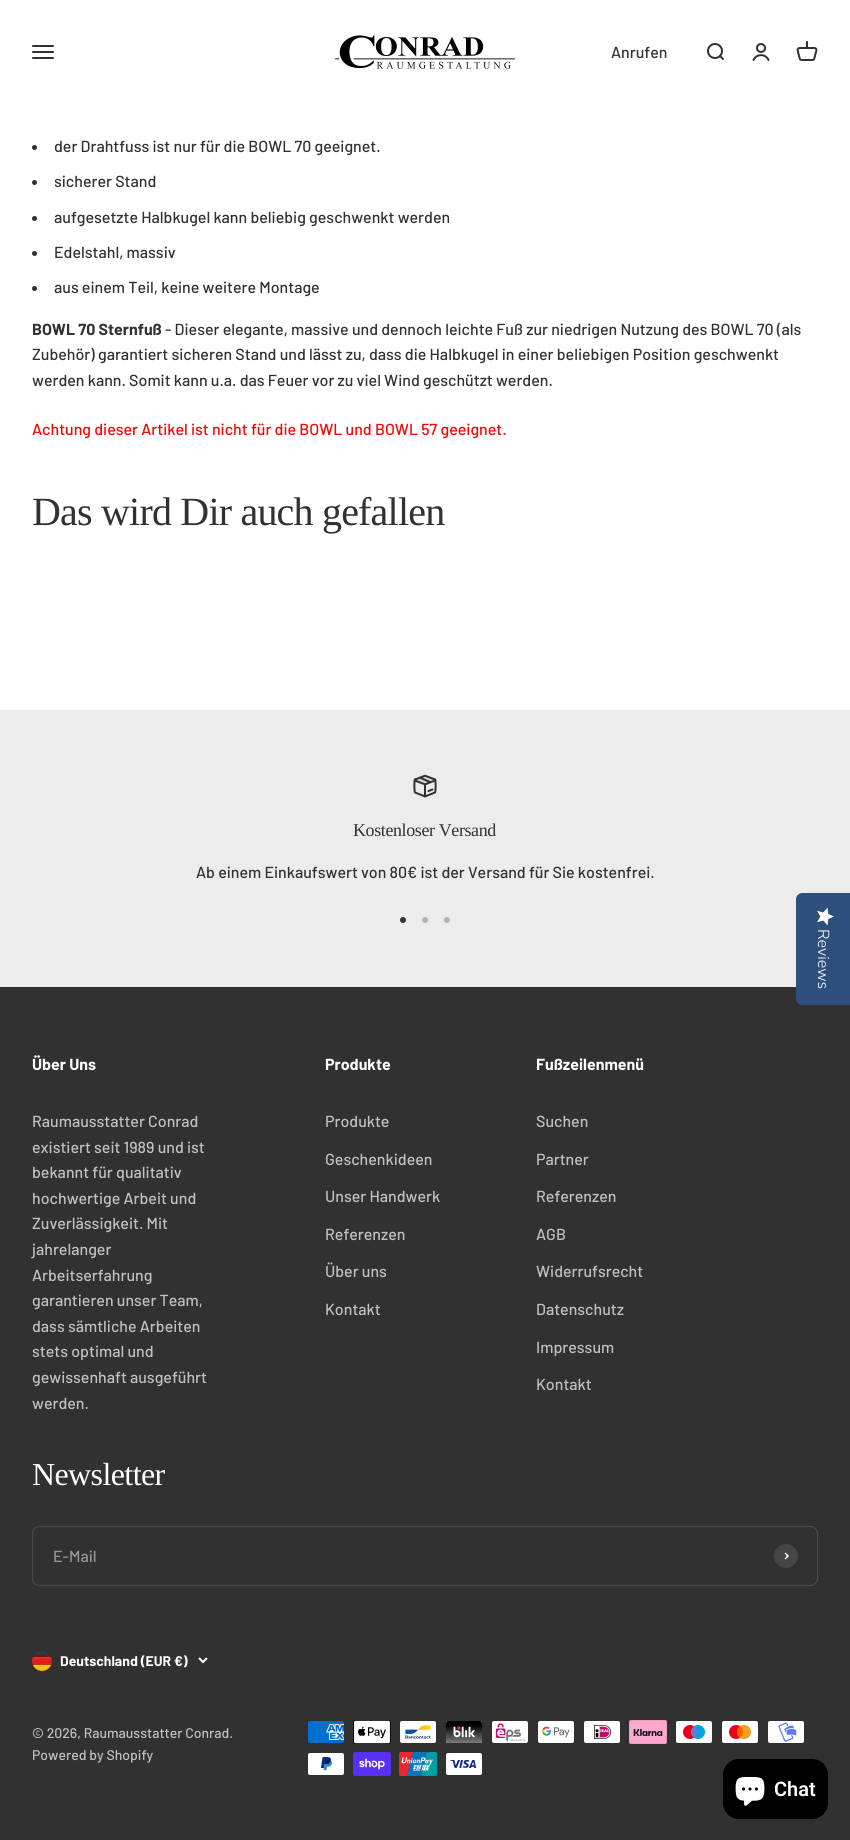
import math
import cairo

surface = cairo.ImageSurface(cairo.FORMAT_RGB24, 850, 1840)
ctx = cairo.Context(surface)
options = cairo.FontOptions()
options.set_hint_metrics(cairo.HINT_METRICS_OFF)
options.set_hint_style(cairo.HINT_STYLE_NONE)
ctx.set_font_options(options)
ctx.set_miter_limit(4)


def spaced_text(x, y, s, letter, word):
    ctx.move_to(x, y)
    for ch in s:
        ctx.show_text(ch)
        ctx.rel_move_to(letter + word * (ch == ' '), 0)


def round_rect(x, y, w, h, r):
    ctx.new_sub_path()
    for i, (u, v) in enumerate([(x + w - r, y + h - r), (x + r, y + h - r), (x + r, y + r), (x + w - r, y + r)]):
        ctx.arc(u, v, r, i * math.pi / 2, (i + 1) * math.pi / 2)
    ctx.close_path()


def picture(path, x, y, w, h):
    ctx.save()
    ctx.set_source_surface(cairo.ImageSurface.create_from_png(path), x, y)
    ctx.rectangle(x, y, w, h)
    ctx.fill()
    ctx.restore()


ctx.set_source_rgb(1, 1, 1)
ctx.paint()
picture("img1.png", 32, 45, 22, 14)
picture("img2.png", 335, 35, 180, 34)
ctx.select_font_face("Barlow Medium")
ctx.set_font_size(16)
ctx.set_source_rgb(0.192, 0.192, 0.192)
ctx.move_to(611, 58)
ctx.show_text("Anrufen")
picture("img3.png", 707, 43, 17, 17)
ctx.arc(761, 48, 4, 0, 2 * math.pi)
ctx.stroke()
ctx.new_path()
ctx.move_to(753.5, 60)
ctx.curve_to(756.5, 53.5, 765.5, 53.5, 768.5, 60)
ctx.set_line_cap(cairo.LINE_CAP_ROUND)
ctx.stroke()
picture("img4.png", 796, 41, 22, 20)
ctx.arc(34.5, 147.5, 2.5, 0, 2 * math.pi)
ctx.fill()
ctx.move_to(54, 152)
ctx.show_text("der Drahtfuss ist nur für die BOWL 70 geeignet.")
ctx.new_path()
ctx.arc(34.5, 182.5, 2.5, 0, 2 * math.pi)
ctx.fill()
ctx.move_to(54, 187)
ctx.show_text("sicherer Stand")
ctx.new_path()
ctx.arc(34.5, 218.5, 2.5, 0, 2 * math.pi)
ctx.fill()
ctx.move_to(54, 223)
ctx.show_text("aufgesetzte Halbkugel kann beliebig geschwenkt werden")
ctx.new_path()
ctx.arc(34.5, 253.5, 2.5, 0, 2 * math.pi)
ctx.fill()
ctx.move_to(54, 258)
ctx.show_text("Edelstahl, massiv")
ctx.new_path()
ctx.arc(34.5, 288.5, 2.5, 0, 2 * math.pi)
ctx.fill()
ctx.move_to(54, 293)
ctx.show_text("aus einem Teil, keine weitere Montage")
ctx.select_font_face("Barlow", cairo.FONT_SLANT_NORMAL, cairo.FONT_WEIGHT_BOLD)
ctx.move_to(32, 335)
ctx.show_text("BOWL 70 Sternfuß")
ctx.select_font_face("Barlow Medium")
ctx.move_to(165, 335)
ctx.show_text("- Dieser elegante, massive und dennoch leichte Fuß zur niedrigen Nutzung des BOWL 70 (als")
ctx.move_to(32, 360)
ctx.show_text("Zubehör) garantiert sicheren Stand und lässt zu, dass die Halbkugel in einer beliebigen Position geschwenkt")
ctx.move_to(32, 386)
ctx.show_text("werden kann. Somit kann u.a. das Feuer vor zu viel Wind geschützt werden.")
ctx.set_source_rgb(0.969, 0.012, 0.012)
ctx.move_to(32, 435)
ctx.show_text("Achtung dieser Artikel ist nicht für die BOWL und BOWL 57 geeignet.")
ctx.select_font_face("Liberation Serif")
ctx.set_font_size(40)
ctx.set_source_rgb(0.192, 0.192, 0.192)
spaced_text(32, 525, "Das wird Dir auch gefallen", -0.8, 0)
ctx.set_source_rgb(0.925, 0.925, 0.922)
ctx.rectangle(0, 710, 850, 277)
ctx.fill()
picture("img5.png", 413, 774, 24, 24)
ctx.set_font_size(18)
ctx.set_source_rgb(0.192, 0.192, 0.192)
spaced_text(353, 836, "Kostenloser Versand", -0.4, 0)
ctx.select_font_face("Barlow Medium")
ctx.set_font_size(16)
ctx.move_to(196, 878)
ctx.show_text("Ab einem Einkaufswert von 80€ ist der Versand für Sie kostenfrei.")
ctx.new_path()
ctx.arc(403, 920, 3, 0, 2 * math.pi)
ctx.fill()
ctx.set_source_rgb(0.706, 0.706, 0.702)
ctx.arc(425, 920, 3, 0, 2 * math.pi)
ctx.fill()
ctx.arc(447, 920, 3, 0, 2 * math.pi)
ctx.fill()
ctx.set_source_rgb(0.192, 0.192, 0.192)
ctx.rectangle(0, 987, 850, 853)
ctx.fill()
ctx.select_font_face("Barlow", cairo.FONT_SLANT_NORMAL, cairo.FONT_WEIGHT_BOLD)
ctx.set_source_rgb(1, 1, 1)
ctx.move_to(32, 1070)
ctx.show_text("Über Uns")
ctx.select_font_face("Barlow Medium")
ctx.set_source_rgb(0.757, 0.757, 0.757)
ctx.move_to(32, 1127)
ctx.show_text("Raumausstatter Conrad")
ctx.move_to(32, 1153)
ctx.show_text("existiert seit 1989 und ist")
ctx.move_to(32, 1178)
ctx.show_text("bekannt für qualitativ")
ctx.move_to(32, 1204)
ctx.show_text("hochwertige Arbeit und")
ctx.move_to(32, 1229)
ctx.show_text("Zuverlässigkeit. Mit")
ctx.move_to(32, 1255)
ctx.show_text("jahrelanger")
ctx.move_to(32, 1281)
ctx.show_text("Arbeitserfahrung")
ctx.move_to(32, 1306)
ctx.show_text("garantieren unser Team,")
ctx.move_to(32, 1332)
ctx.show_text("dass sämtliche Arbeiten")
ctx.move_to(32, 1357)
ctx.show_text("stets optimal und")
ctx.move_to(32, 1383)
ctx.show_text("gewissenhaft ausgeführt")
ctx.move_to(32, 1409)
ctx.show_text("werden.")
ctx.select_font_face("Barlow", cairo.FONT_SLANT_NORMAL, cairo.FONT_WEIGHT_BOLD)
ctx.set_source_rgb(1, 1, 1)
ctx.move_to(325, 1070)
ctx.show_text("Produkte")
ctx.select_font_face("Barlow Medium")
ctx.set_source_rgb(0.757, 0.757, 0.757)
ctx.move_to(325, 1127)
ctx.show_text("Produkte")
ctx.move_to(325, 1165)
ctx.show_text("Geschenkideen")
ctx.move_to(325, 1202)
ctx.show_text("Unser Handwerk")
ctx.move_to(325, 1240)
ctx.show_text("Referenzen")
ctx.move_to(325, 1277)
ctx.show_text("Über uns")
ctx.move_to(325, 1315)
ctx.show_text("Kontakt")
ctx.select_font_face("Barlow", cairo.FONT_SLANT_NORMAL, cairo.FONT_WEIGHT_BOLD)
ctx.set_source_rgb(1, 1, 1)
ctx.move_to(536, 1070)
ctx.show_text("Fußzeilenmenü")
ctx.select_font_face("Barlow Medium")
ctx.set_source_rgb(0.757, 0.757, 0.757)
ctx.move_to(536, 1127)
ctx.show_text("Suchen")
ctx.move_to(536, 1165)
ctx.show_text("Partner")
ctx.move_to(536, 1202)
ctx.show_text("Referenzen")
ctx.move_to(536, 1240)
ctx.show_text("AGB")
ctx.move_to(536, 1277)
ctx.show_text("Widerrufsrecht")
ctx.move_to(536, 1315)
ctx.show_text("Datenschutz")
ctx.move_to(536, 1353)
ctx.show_text("Impressum")
ctx.move_to(536, 1390)
ctx.show_text("Kontakt")
ctx.select_font_face("Liberation Serif")
ctx.set_font_size(32)
ctx.set_source_rgb(1, 1, 1)
spaced_text(32, 1485, "Newsletter", -0.6, 0)
round_rect(32.5, 1526.5, 785, 59, 7.5)
ctx.set_source_rgb(0.29, 0.29, 0.29)
ctx.set_line_width(1)
ctx.set_line_cap(cairo.LINE_CAP_BUTT)
ctx.stroke()
ctx.select_font_face("Barlow Medium")
ctx.set_font_size(16)
ctx.set_source_rgb(0.596, 0.596, 0.596)
ctx.move_to(53, 1562)
ctx.show_text("E-Mail")
ctx.set_source_rgb(0.275, 0.275, 0.275)
ctx.new_path()
ctx.arc(786, 1556, 12, 0, 2 * math.pi)
ctx.fill()
ctx.new_path()
ctx.move_to(785, 1559)
ctx.line_to(788, 1556)
ctx.line_to(785, 1553)
ctx.set_source_rgb(1, 1, 1)
ctx.set_line_width(1.5)
ctx.stroke()
picture("img6.png", 32, 1651, 20, 20)
ctx.select_font_face("Barlow", cairo.FONT_SLANT_NORMAL, cairo.FONT_WEIGHT_BOLD)
ctx.set_font_size(14)
ctx.move_to(60, 1666)
ctx.show_text("Deutschland (EUR €)")
ctx.new_path()
ctx.move_to(199, 1658)
ctx.line_to(203, 1662)
ctx.line_to(207, 1658)
ctx.set_line_width(2)
ctx.stroke()
ctx.select_font_face("Barlow Medium")
ctx.set_source_rgb(0.757, 0.757, 0.757)
ctx.move_to(32, 1738)
ctx.show_text("© 2026, Raumausstatter Conrad.")
ctx.move_to(32, 1760)
ctx.show_text("Powered by Shopify")
picture("img7.png", 308, 1721, 36, 22)
picture("img8.png", 353, 1720, 38, 24)
picture("img9.png", 400, 1721, 36, 22)
picture("img10.png", 446, 1721, 36, 22)
picture("img11.png", 492, 1721, 36, 22)
picture("img12.png", 538, 1721, 36, 22)
picture("img13.png", 584, 1721, 36, 22)
picture("img14.png", 629, 1720, 38, 24)
picture("img15.png", 676, 1721, 36, 22)
picture("img16.png", 722, 1721, 36, 22)
picture("img17.png", 768, 1721, 36, 22)
picture("img18.png", 308, 1753, 36, 22)
picture("img19.png", 353, 1752, 38, 24)
picture("img20.png", 399, 1752, 38, 24)
picture("img21.png", 446, 1753, 36, 22)
ctx.set_source_rgb(0.18, 0.31, 0.486)
ctx.new_path()
ctx.move_to(850, 893)
ctx.line_to(850, 1005)
ctx.line_to(802, 1005)
ctx.curve_to(799, 1005, 796, 1002, 796, 999)
ctx.line_to(796, 899)
ctx.curve_to(796, 896, 799, 893, 802, 893)
ctx.close_path()
ctx.fill()
picture("img22.png", 817, 907, 17, 19)
ctx.select_font_face("Nunito Sans Light")
ctx.set_font_size(16)
ctx.set_source_rgb(1, 1, 1)
ctx.save()
ctx.translate(818, 929)
ctx.rotate(90 * math.pi / 180)
ctx.move_to(0, 0)
ctx.show_text("Reviews")
ctx.restore()
ctx.set_source_rgb(0, 0, 0)
round_rect(723, 1759, 105, 60, 16)
ctx.fill()
picture("img23.png", 735, 1777, 30, 29)
ctx.select_font_face("Roboto SemiBold")
ctx.set_font_size(20)
ctx.set_source_rgb(1, 1, 1)
ctx.move_to(774, 1796)
ctx.show_text("Chat")
surface.write_to_png("page.png")
